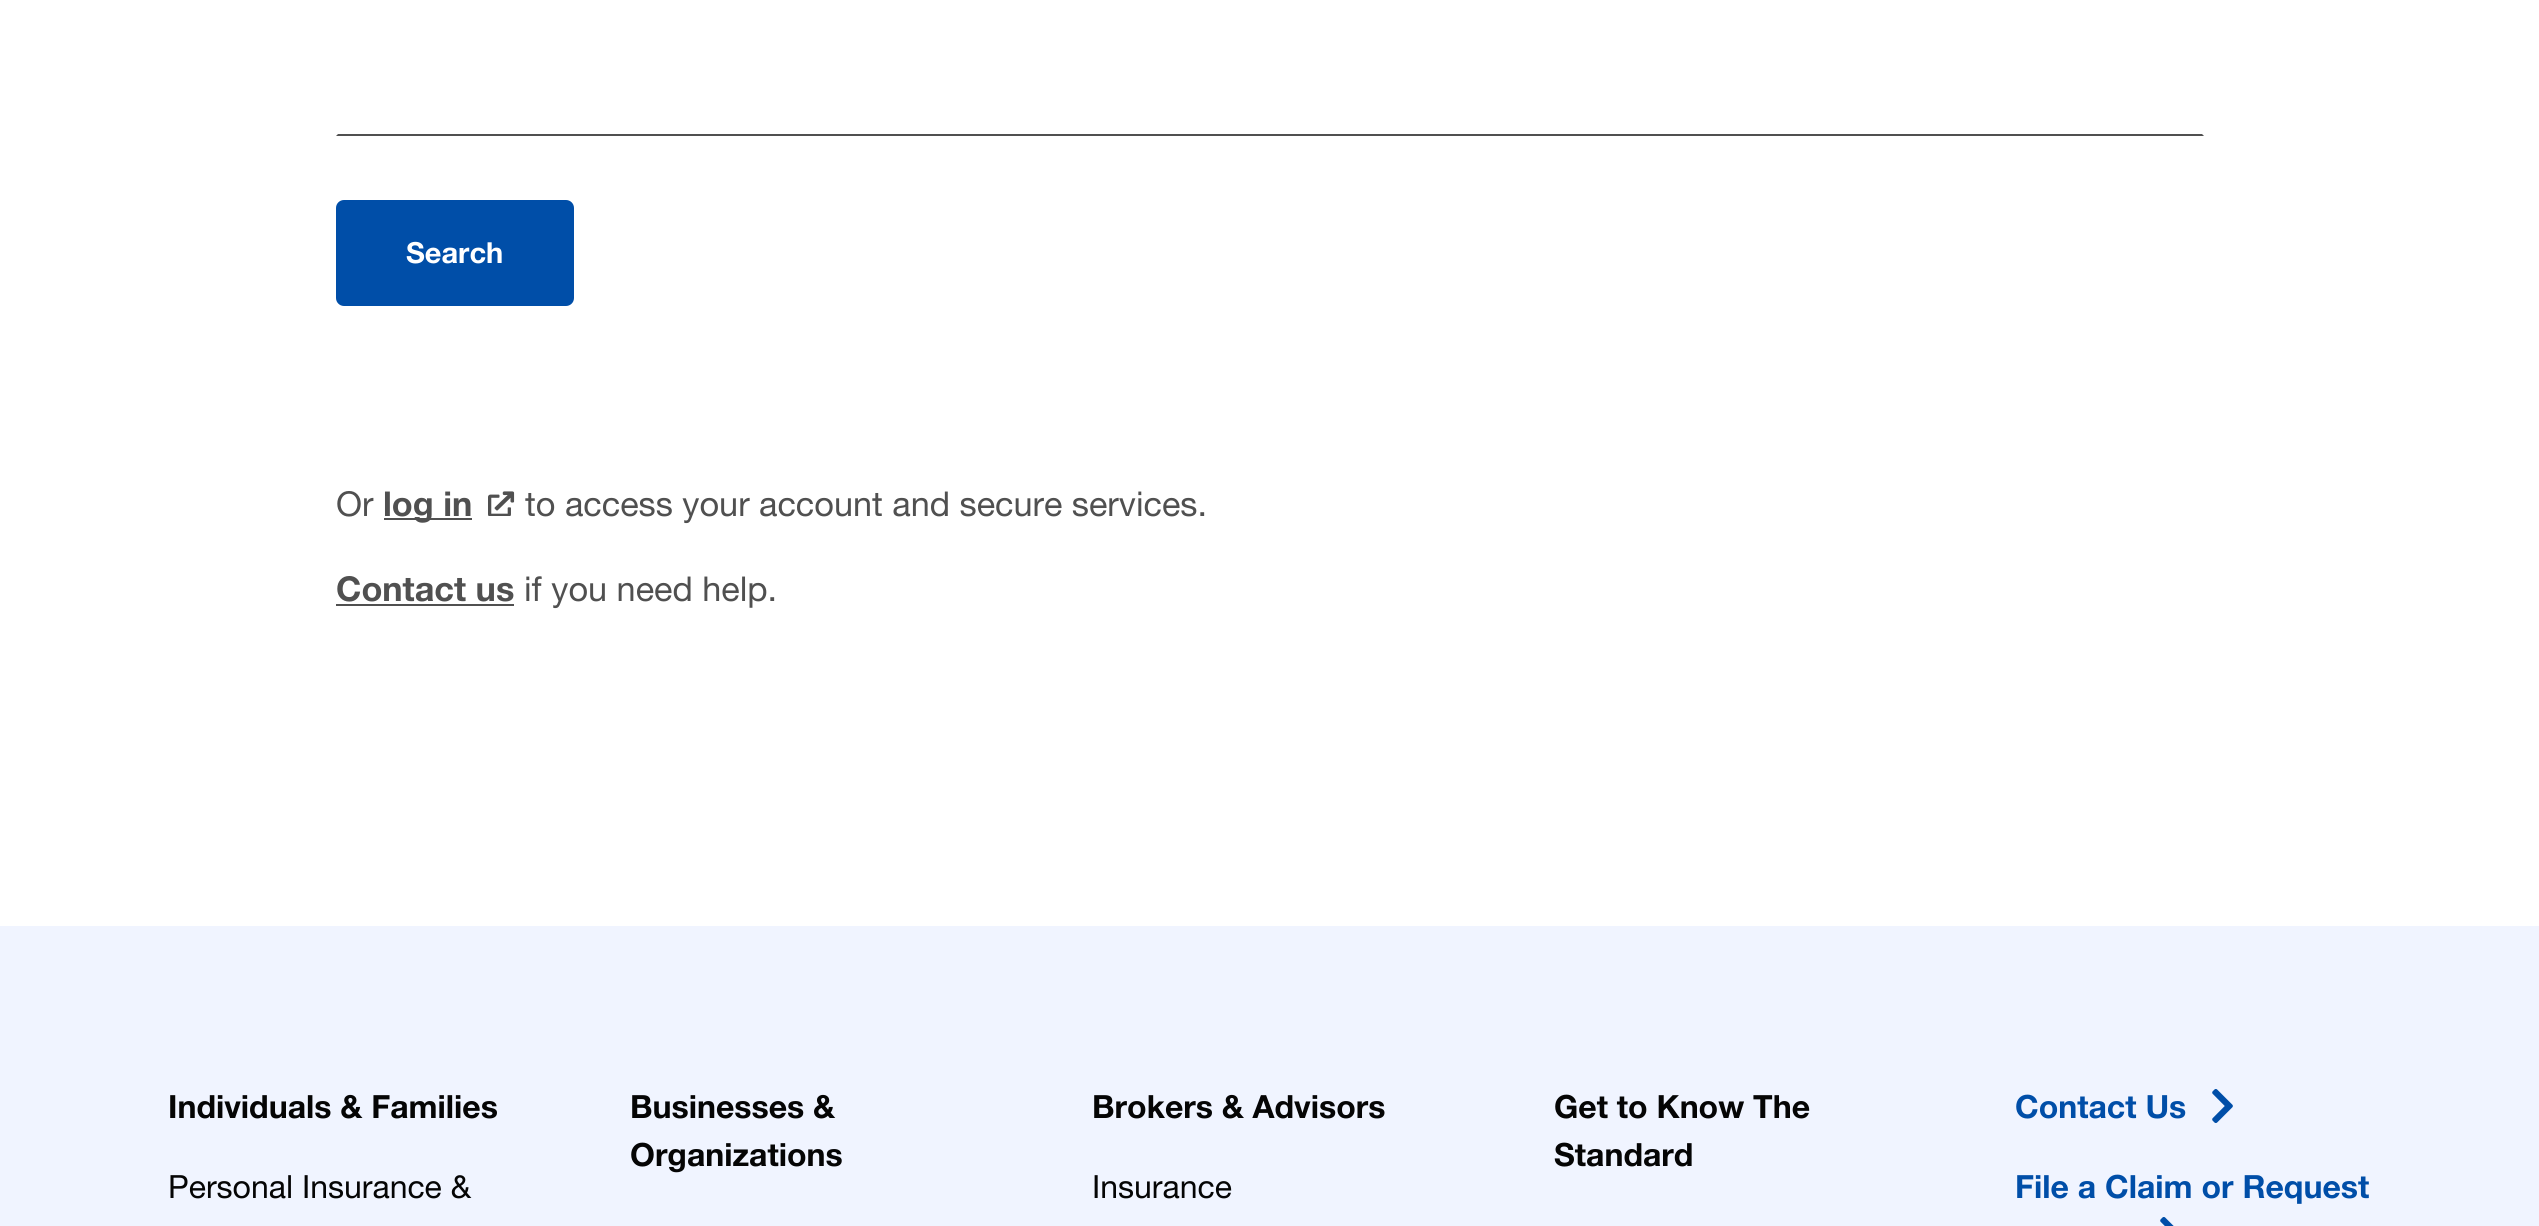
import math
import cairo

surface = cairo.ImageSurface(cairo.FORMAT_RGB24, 2539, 1226)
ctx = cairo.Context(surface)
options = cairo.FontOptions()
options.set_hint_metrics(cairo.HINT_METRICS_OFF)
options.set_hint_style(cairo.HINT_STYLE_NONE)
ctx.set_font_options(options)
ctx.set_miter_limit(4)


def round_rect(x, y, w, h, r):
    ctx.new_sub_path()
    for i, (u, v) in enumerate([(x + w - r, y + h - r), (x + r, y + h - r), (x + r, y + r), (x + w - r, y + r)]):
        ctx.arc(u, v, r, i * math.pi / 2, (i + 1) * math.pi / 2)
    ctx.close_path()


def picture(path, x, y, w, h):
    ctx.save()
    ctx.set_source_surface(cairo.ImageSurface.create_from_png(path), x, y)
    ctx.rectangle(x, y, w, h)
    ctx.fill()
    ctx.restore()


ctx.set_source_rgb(1, 1, 1)
ctx.paint()
ctx.set_source_rgb(0.314, 0.314, 0.314)
ctx.new_path()
ctx.move_to(2204, 136)
ctx.line_to(336, 136)
ctx.line_to(338, 134)
ctx.line_to(2202, 134)
ctx.close_path()
ctx.fill()
ctx.set_source_rgb(0, 0.306, 0.659)
round_rect(339, 203, 232, 100, 5)
ctx.fill_preserve()
ctx.set_line_width(6)
ctx.stroke()
ctx.select_font_face("Helvetica Neue", cairo.FONT_SLANT_NORMAL, cairo.FONT_WEIGHT_BOLD)
ctx.set_font_size(29)
ctx.set_source_rgb(1, 1, 1)
ctx.move_to(406, 263)
ctx.show_text("Search")
ctx.select_font_face("Helvetica Neue")
ctx.set_font_size(34.25)
ctx.set_source_rgb(0.314, 0.314, 0.314)
ctx.move_to(336, 516)
ctx.show_text("Or")
ctx.rectangle(384, 518, 88, 2)
ctx.fill()
ctx.select_font_face("Helvetica Neue", cairo.FONT_SLANT_NORMAL, cairo.FONT_WEIGHT_BOLD)
ctx.move_to(383, 516)
ctx.show_text("log in")
picture("img1.png", 488, 491, 27, 25)
ctx.select_font_face("Helvetica Neue")
ctx.move_to(525, 516)
ctx.show_text("to access your account and secure services.")
ctx.select_font_face("Helvetica Neue", cairo.FONT_SLANT_NORMAL, cairo.FONT_WEIGHT_BOLD)
ctx.move_to(336, 601)
ctx.show_text("Contact us")
ctx.rectangle(336, 604, 178, 2)
ctx.fill()
ctx.select_font_face("Helvetica Neue")
ctx.move_to(524, 601)
ctx.show_text("if you need help.")
ctx.set_source_rgb(0.941, 0.957, 1)
ctx.rectangle(0, 926, 2539, 300)
ctx.fill()
ctx.select_font_face("Helvetica Neue", cairo.FONT_SLANT_NORMAL, cairo.FONT_WEIGHT_BOLD)
ctx.set_font_size(32)
ctx.set_source_rgb(0.02, 0.02, 0.02)
ctx.move_to(168, 1118)
ctx.show_text("Individuals & Families")
ctx.select_font_face("Helvetica Neue")
ctx.move_to(168, 1198)
ctx.show_text("Personal Insurance &")
ctx.select_font_face("Helvetica Neue", cairo.FONT_SLANT_NORMAL, cairo.FONT_WEIGHT_BOLD)
ctx.move_to(630, 1118)
ctx.show_text("Businesses &")
ctx.move_to(630, 1166)
ctx.show_text("Organizations")
ctx.move_to(1092, 1118)
ctx.show_text("Brokers & Advisors")
ctx.select_font_face("Helvetica Neue")
ctx.move_to(1092, 1198)
ctx.show_text("Insurance")
ctx.select_font_face("Helvetica Neue", cairo.FONT_SLANT_NORMAL, cairo.FONT_WEIGHT_BOLD)
ctx.move_to(1554, 1118)
ctx.show_text("Get to Know The")
ctx.move_to(1554, 1166)
ctx.show_text("Standard")
ctx.set_source_rgb(0, 0.306, 0.659)
ctx.move_to(2015, 1118)
ctx.show_text("Contact Us")
picture("img2.png", 2212, 1089, 21, 34)
ctx.move_to(2015, 1198)
ctx.show_text("File a Claim or Request")
picture("img3.png", 2160, 1217, 14, 9)
surface.write_to_png("page.png")
